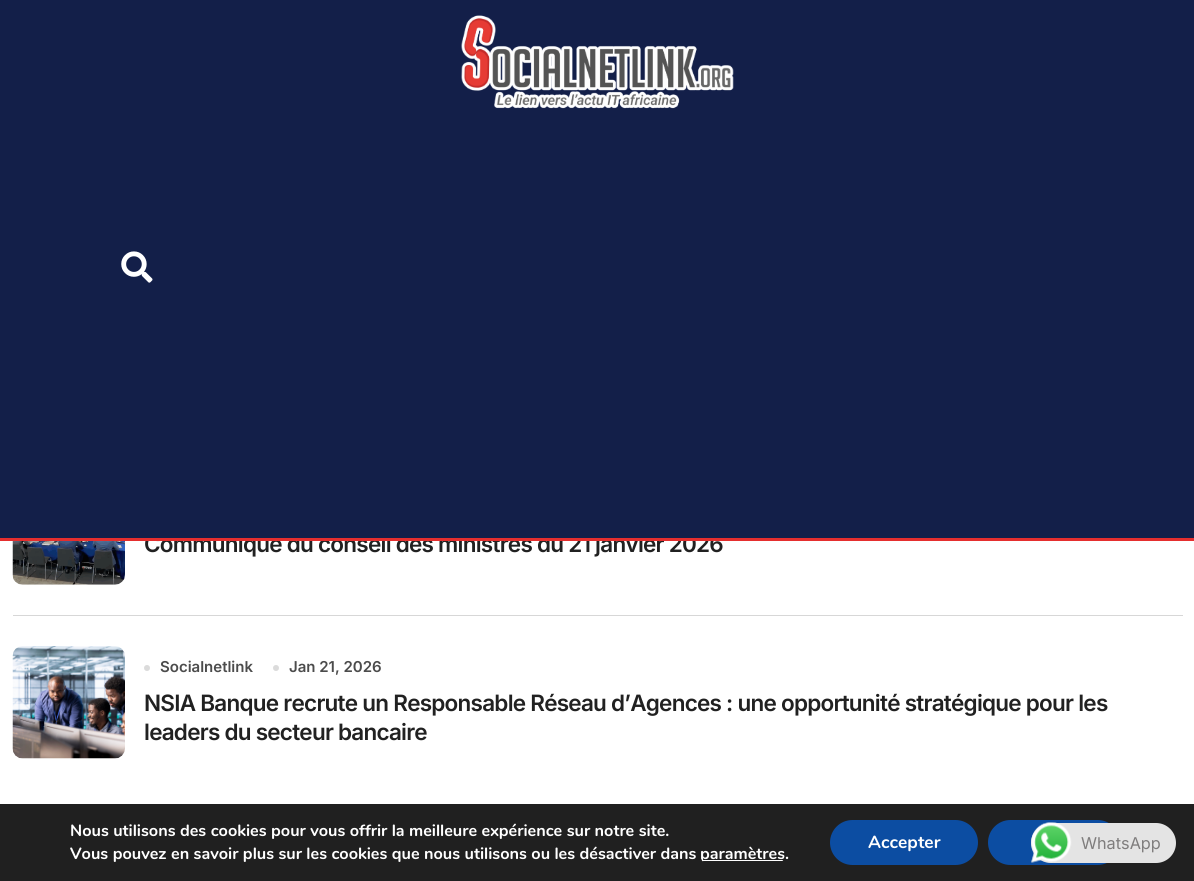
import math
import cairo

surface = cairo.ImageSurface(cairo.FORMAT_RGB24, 1194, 881)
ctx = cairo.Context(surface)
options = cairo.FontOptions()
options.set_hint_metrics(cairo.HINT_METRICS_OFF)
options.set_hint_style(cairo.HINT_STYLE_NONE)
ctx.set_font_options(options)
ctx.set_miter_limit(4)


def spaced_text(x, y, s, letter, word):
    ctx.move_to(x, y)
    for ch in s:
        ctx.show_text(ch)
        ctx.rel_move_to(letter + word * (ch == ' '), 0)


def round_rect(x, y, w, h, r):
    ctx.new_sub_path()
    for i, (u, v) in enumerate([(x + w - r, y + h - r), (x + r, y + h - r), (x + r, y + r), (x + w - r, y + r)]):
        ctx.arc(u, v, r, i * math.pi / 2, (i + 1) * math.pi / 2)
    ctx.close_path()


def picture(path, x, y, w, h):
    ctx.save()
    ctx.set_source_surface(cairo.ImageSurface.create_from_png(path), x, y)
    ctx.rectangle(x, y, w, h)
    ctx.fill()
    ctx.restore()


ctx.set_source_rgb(1, 1, 1)
ctx.paint()
ctx.select_font_face("Inter SemiBold")
ctx.set_font_size(22.5)
ctx.set_source_rgb(0.129, 0.129, 0.129)
spaced_text(144, 552, "Communiqué du conseil des ministres du 21 janvier 2026", -0.75, 0)
ctx.set_source_rgb(0.075, 0.122, 0.286)
ctx.rectangle(0, 0, 1194, 538)
ctx.fill()
ctx.set_source_rgb(0.898, 0.18, 0.18)
ctx.rectangle(0, 538, 1194, 3)
ctx.fill()
picture("img1.png", 461, 15, 273, 94)
picture("img2.png", 121, 251, 32, 32)
ctx.set_source_rgb(0.843, 0.843, 0.843)
ctx.rectangle(13, 615, 1170, 1)
ctx.fill()
picture("img3.png", 12, 541, 113, 44)
picture("img4.png", 12, 646, 113, 113)
ctx.set_source_rgb(0.859, 0.859, 0.859)
ctx.arc(147, 668, 3, 0, 2 * math.pi)
ctx.fill()
ctx.set_font_size(15)
ctx.set_source_rgb(0.298, 0.298, 0.298)
ctx.move_to(160, 672)
ctx.show_text("Socialnetlink")
ctx.set_source_rgb(0.859, 0.859, 0.859)
ctx.new_path()
ctx.arc(276, 668, 3, 0, 2 * math.pi)
ctx.fill()
ctx.set_source_rgb(0.298, 0.298, 0.298)
ctx.move_to(289, 672)
ctx.show_text("Jan 21, 2026")
ctx.set_font_size(22.5)
ctx.set_source_rgb(0.129, 0.129, 0.129)
spaced_text(144, 711, "NSIA Banque recrute un Responsable Réseau d’Agences : une opportunité stratégique pour les", -0.75, 0)
spaced_text(144, 740, "leaders du secteur bancaire", -0.75, 0)
ctx.set_source_rgb(0.125, 0.125, 0.125)
ctx.rectangle(0, 804, 1194, 77)
ctx.fill()
ctx.select_font_face("Nunito", cairo.FONT_SLANT_NORMAL, cairo.FONT_WEIGHT_BOLD)
ctx.set_font_size(16.25)
ctx.set_source_rgb(1, 1, 1)
ctx.move_to(70, 836)
ctx.show_text("Nous utilisons des cookies pour vous offrir la meilleure expérience sur notre site.")
ctx.move_to(70, 859)
ctx.show_text("Vous pouvez en savoir plus sur les cookies que nous utilisons ou les désactiver dans")
ctx.save()
round_rect(700, 843, 85, 22, 11)
ctx.clip()
ctx.rectangle(700, 860, 85, 1)
ctx.fill()
ctx.move_to(700, 859)
ctx.show_text("paramètres")
ctx.restore()
ctx.move_to(785, 859)
ctx.show_text(".")
ctx.set_source_rgb(0.047, 0.302, 0.635)
round_rect(830, 820, 148, 45, 22.5)
ctx.fill()
ctx.set_font_size(17.5)
ctx.set_source_rgb(1, 1, 1)
ctx.move_to(868, 848)
ctx.show_text("Accepter")
ctx.set_source_rgb(0.047, 0.302, 0.635)
round_rect(988, 820, 132, 45, 22.5)
ctx.fill()
ctx.set_source_rgb(0.894, 0.894, 0.894)
round_rect(1031, 823, 145, 40, 20)
ctx.fill()
picture("img5.png", 1031, 822, 41, 41)
ctx.select_font_face("Inter")
ctx.set_font_size(16.25)
ctx.set_source_rgb(0.498, 0.49, 0.49)
ctx.move_to(1081, 849)
ctx.show_text("WhatsApp")
surface.write_to_png("page.png")
